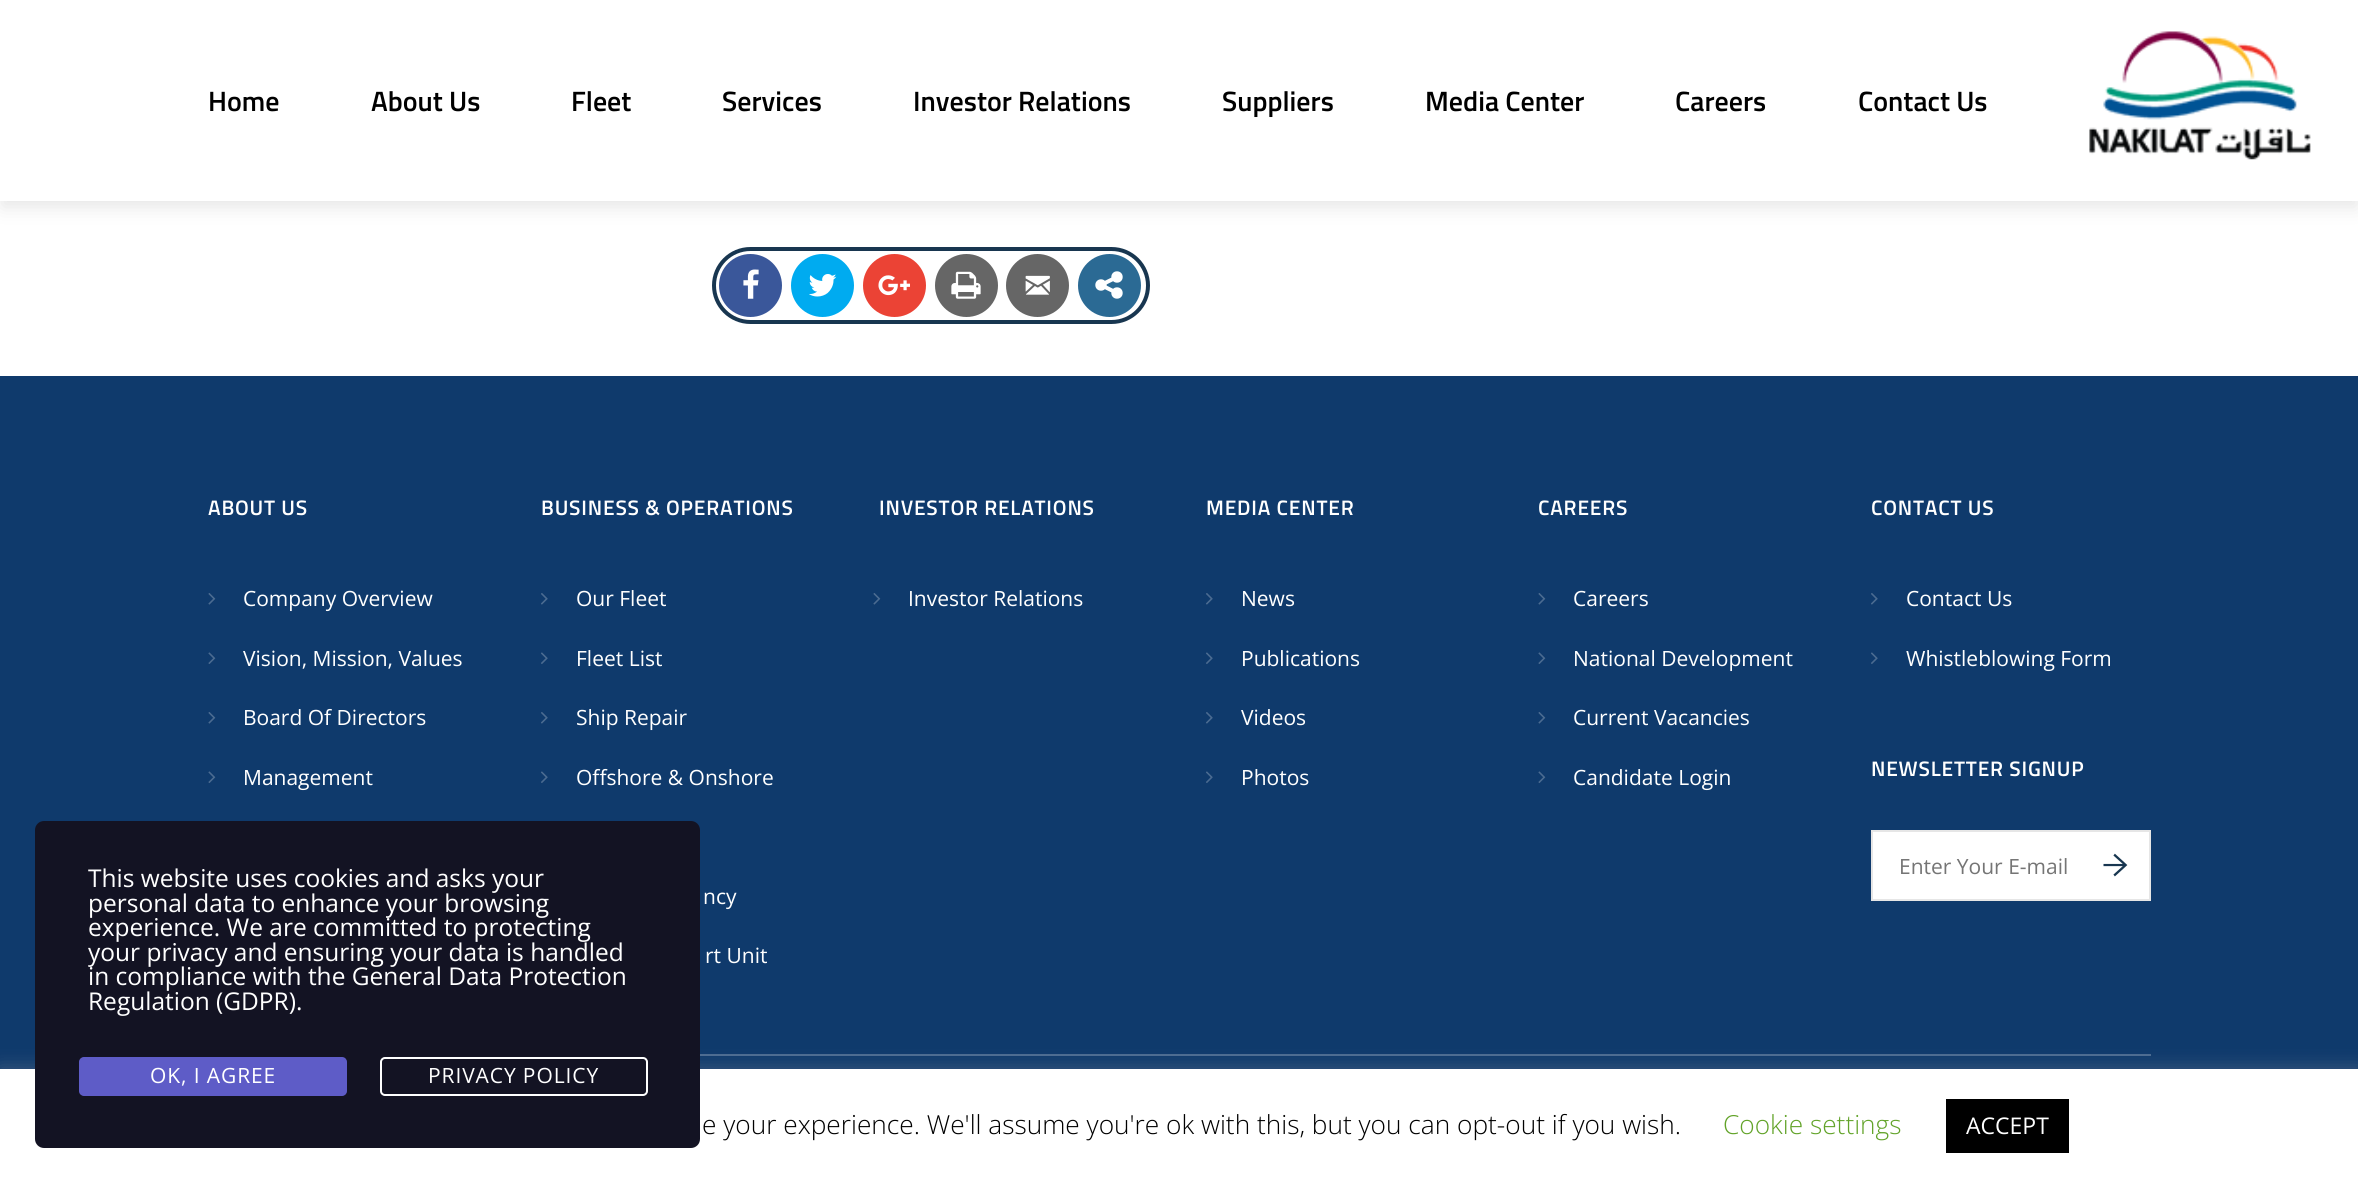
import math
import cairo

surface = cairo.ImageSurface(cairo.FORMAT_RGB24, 2358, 1183)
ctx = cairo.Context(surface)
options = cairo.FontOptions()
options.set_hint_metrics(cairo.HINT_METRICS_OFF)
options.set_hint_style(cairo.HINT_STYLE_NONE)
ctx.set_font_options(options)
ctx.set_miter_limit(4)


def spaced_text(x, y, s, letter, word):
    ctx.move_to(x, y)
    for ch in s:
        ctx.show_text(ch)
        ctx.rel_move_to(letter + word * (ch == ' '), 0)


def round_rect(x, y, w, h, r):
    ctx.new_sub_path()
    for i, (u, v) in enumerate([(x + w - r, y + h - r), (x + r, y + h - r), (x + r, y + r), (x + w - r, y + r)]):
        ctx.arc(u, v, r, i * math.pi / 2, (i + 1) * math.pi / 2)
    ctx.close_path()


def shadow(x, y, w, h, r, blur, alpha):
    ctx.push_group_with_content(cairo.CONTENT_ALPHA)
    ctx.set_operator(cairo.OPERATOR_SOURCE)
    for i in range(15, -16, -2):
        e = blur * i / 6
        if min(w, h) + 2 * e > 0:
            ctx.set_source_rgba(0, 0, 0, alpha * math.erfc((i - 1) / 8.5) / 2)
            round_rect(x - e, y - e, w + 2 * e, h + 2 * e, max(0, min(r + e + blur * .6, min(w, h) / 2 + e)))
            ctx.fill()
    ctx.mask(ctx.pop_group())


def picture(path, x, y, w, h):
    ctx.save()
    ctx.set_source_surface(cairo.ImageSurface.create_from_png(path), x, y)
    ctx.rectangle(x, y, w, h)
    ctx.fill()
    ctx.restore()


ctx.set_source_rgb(1, 1, 1)
ctx.paint()
ctx.set_source_rgb(0.902, 0.902, 0.902)
shadow(2, 9, 2355, 198, 0, 9.5, 1)
ctx.set_source_rgb(1, 1, 1)
ctx.rectangle(0, 0, 2358, 201)
ctx.fill()
ctx.select_font_face("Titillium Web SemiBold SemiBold")
ctx.set_font_size(28)
ctx.set_source_rgb(0, 0, 0)
ctx.move_to(208, 111)
ctx.show_text("Home")
ctx.move_to(371, 111)
ctx.show_text("About Us")
ctx.move_to(571, 111)
ctx.show_text("Fleet")
ctx.move_to(722, 111)
ctx.show_text("Services")
ctx.move_to(913, 111)
ctx.show_text("Investor Relations")
ctx.move_to(1222, 111)
ctx.show_text("Suppliers")
ctx.move_to(1425, 111)
ctx.show_text("Media Center")
ctx.move_to(1675, 111)
ctx.show_text("Careers")
ctx.move_to(1858, 111)
ctx.show_text("Contact Us")
picture("img1.png", 2089, 31, 222, 129)
round_rect(714, 249, 434, 73, 36.5)
ctx.set_source_rgb(0.094, 0.212, 0.314)
ctx.set_line_width(4)
ctx.stroke()
ctx.set_source_rgb(0.227, 0.341, 0.604)
ctx.arc(750.5, 285.5, 31.5, 0, 2 * math.pi)
ctx.fill()
picture("img2.png", 743, 269, 16, 30)
ctx.set_source_rgb(0, 0.671, 0.941)
ctx.arc(822.5, 285.5, 31.5, 0, 2 * math.pi)
ctx.fill()
picture("img3.png", 809, 274, 28, 23)
ctx.set_source_rgb(0.918, 0.263, 0.208)
ctx.arc(894.5, 285.5, 31.5, 0, 2 * math.pi)
ctx.fill()
picture("img4.png", 878, 275, 32, 21)
ctx.set_source_rgb(0.4, 0.4, 0.4)
ctx.arc(966.5, 285.5, 31.5, 0, 2 * math.pi)
ctx.fill()
picture("img5.png", 951, 271, 30, 28)
ctx.arc(1037.5, 285.5, 31.5, 0, 2 * math.pi)
ctx.fill()
picture("img6.png", 1025, 275, 25, 20)
ctx.set_source_rgb(0.169, 0.416, 0.58)
ctx.arc(1109.5, 285.5, 31.5, 0, 2 * math.pi)
ctx.fill()
ctx.select_font_face("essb")
ctx.set_font_size(32)
ctx.set_source_rgb(1, 1, 1)
ctx.move_to(1093, 301)
ctx.show_text("6")
ctx.set_source_rgb(0.059, 0.227, 0.424)
ctx.rectangle(0, 376, 2358, 693)
ctx.fill()
ctx.select_font_face("Titillium Web SemiBold SemiBold")
ctx.set_font_size(21)
ctx.set_source_rgb(1, 1, 1)
spaced_text(208, 515, "ABOUT US", 0.8, 0)
picture("img7.png", 208, 593, 8, 12)
ctx.select_font_face("Open Sans")
ctx.move_to(243, 606)
ctx.show_text("Company Overview")
picture("img8.png", 208, 652, 8, 12)
ctx.move_to(243, 666)
ctx.show_text("Vision, Mission, Values")
picture("img7.png", 208, 712, 8, 12)
ctx.move_to(243, 725)
ctx.show_text("Board Of Directors")
picture("img8.png", 208, 771, 8, 12)
ctx.move_to(243, 785)
ctx.show_text("Management")
ctx.select_font_face("Titillium Web SemiBold SemiBold")
spaced_text(541, 515, "BUSINESS & OPERATIONS", 0.8, 0)
picture("img9.png", 541, 593, 7, 12)
ctx.select_font_face("Open Sans")
ctx.move_to(576, 606)
ctx.show_text("Our Fleet")
picture("img10.png", 541, 652, 7, 12)
ctx.move_to(576, 666)
ctx.show_text("Fleet List")
picture("img9.png", 541, 712, 7, 12)
ctx.move_to(576, 725)
ctx.show_text("Ship Repair")
picture("img10.png", 541, 771, 7, 12)
ctx.move_to(576, 785)
ctx.show_text("Offshore & Onshore")
ctx.move_to(703, 904)
ctx.show_text("ncy")
ctx.move_to(705, 963)
ctx.show_text("rt Unit")
ctx.select_font_face("Titillium Web SemiBold SemiBold")
spaced_text(879, 515, "INVESTOR RELATIONS", 0.8, 0)
picture("img7.png", 873, 593, 8, 12)
ctx.select_font_face("Open Sans")
ctx.move_to(908, 606)
ctx.show_text("Investor Relations")
ctx.select_font_face("Titillium Web SemiBold SemiBold")
spaced_text(1206, 515, "MEDIA CENTER", 0.8, 0)
picture("img9.png", 1206, 593, 7, 12)
ctx.select_font_face("Open Sans")
ctx.move_to(1241, 606)
ctx.show_text("News")
picture("img10.png", 1206, 652, 7, 12)
ctx.move_to(1241, 666)
ctx.show_text("Publications")
picture("img9.png", 1206, 712, 7, 12)
ctx.move_to(1241, 725)
ctx.show_text("Videos")
picture("img10.png", 1206, 771, 7, 12)
ctx.move_to(1241, 785)
ctx.show_text("Photos")
ctx.select_font_face("Titillium Web SemiBold SemiBold")
spaced_text(1538, 515, "CAREERS", 0.8, 0)
picture("img7.png", 1538, 593, 8, 12)
ctx.select_font_face("Open Sans")
ctx.move_to(1573, 606)
ctx.show_text("Careers")
picture("img8.png", 1538, 652, 8, 12)
ctx.move_to(1573, 666)
ctx.show_text("National Development")
picture("img7.png", 1538, 712, 8, 12)
ctx.move_to(1573, 725)
ctx.show_text("Current Vacancies")
picture("img8.png", 1538, 771, 8, 12)
ctx.move_to(1573, 785)
ctx.show_text("Candidate Login")
ctx.select_font_face("Titillium Web SemiBold SemiBold")
spaced_text(1871, 515, "CONTACT US", 0.8, 0)
picture("img9.png", 1871, 593, 7, 12)
ctx.select_font_face("Open Sans")
ctx.move_to(1906, 606)
ctx.show_text("Contact Us")
picture("img10.png", 1871, 652, 7, 12)
ctx.move_to(1906, 666)
ctx.show_text("Whistleblowing Form")
ctx.select_font_face("Titillium Web SemiBold SemiBold")
spaced_text(1871, 776, "NEWSLETTER SIGNUP", 0.8, 0)
ctx.rectangle(1872, 831, 278, 69)
ctx.fill_preserve()
ctx.set_source_rgb(0.902, 0.902, 0.902)
ctx.set_line_width(2)
ctx.stroke()
ctx.select_font_face("Open Sans")
ctx.set_source_rgb(0.459, 0.459, 0.459)
ctx.move_to(1899, 874)
ctx.show_text("Enter Your E-mail")
picture("img11.png", 2103, 853, 25, 24)
ctx.set_source_rgb(0.294, 0.42, 0.569)
ctx.rectangle(700, 1054, 1451, 2)
ctx.fill()
ctx.set_source_rgb(0.675, 0.671, 0.671)
shadow(0, 1068, 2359, 113, 0, 9, 0.3)
ctx.set_source_rgb(1, 1, 1)
ctx.rectangle(0, 1069, 2358, 114)
ctx.fill()
ctx.set_source_rgb(0.075, 0.075, 0.137)
round_rect(35, 821, 665, 327, 9)
ctx.fill()
ctx.set_font_size(24.5)
ctx.set_source_rgb(1, 1, 1)
ctx.move_to(88, 887)
ctx.show_text("This website uses cookies and asks your")
ctx.move_to(88, 912)
ctx.show_text("personal data to enhance your browsing")
ctx.move_to(88, 936)
ctx.show_text("experience. We are committed to protecting")
ctx.move_to(88, 961)
ctx.show_text("your privacy and ensuring your data is handled")
ctx.move_to(88, 985)
ctx.show_text("in compliance with the General Data Protection")
ctx.move_to(88, 1010)
ctx.show_text("Regulation (GDPR).")
ctx.set_source_rgb(0.369, 0.361, 0.78)
round_rect(80, 1058, 266, 37, 4)
ctx.fill_preserve()
ctx.stroke()
ctx.set_font_size(21)
ctx.set_source_rgb(1, 1, 1)
spaced_text(150, 1083, "OK, I AGREE", 0.9, 0)
round_rect(381, 1058, 266, 37, 4)
ctx.stroke()
spaced_text(428, 1083, "PRIVACY POLICY", 0.9, 0)
ctx.select_font_face("Open Sans Light")
ctx.set_font_size(26.25)
ctx.set_source_rgb(0, 0, 0)
ctx.move_to(702, 1134)
ctx.show_text("e your experience. We'll assume you're ok with this, but you can opt-out if you wish.")
ctx.set_source_rgb(0.384, 0.639, 0.161)
ctx.move_to(1723, 1134)
ctx.show_text("Cookie settings")
ctx.set_source_rgb(0, 0, 0)
ctx.rectangle(1946, 1099, 123, 54)
ctx.fill()
ctx.select_font_face("Open Sans")
ctx.set_font_size(23)
ctx.set_source_rgb(1, 1, 1)
ctx.move_to(1966, 1134)
ctx.show_text("ACCEPT")
surface.write_to_png("page.png")
